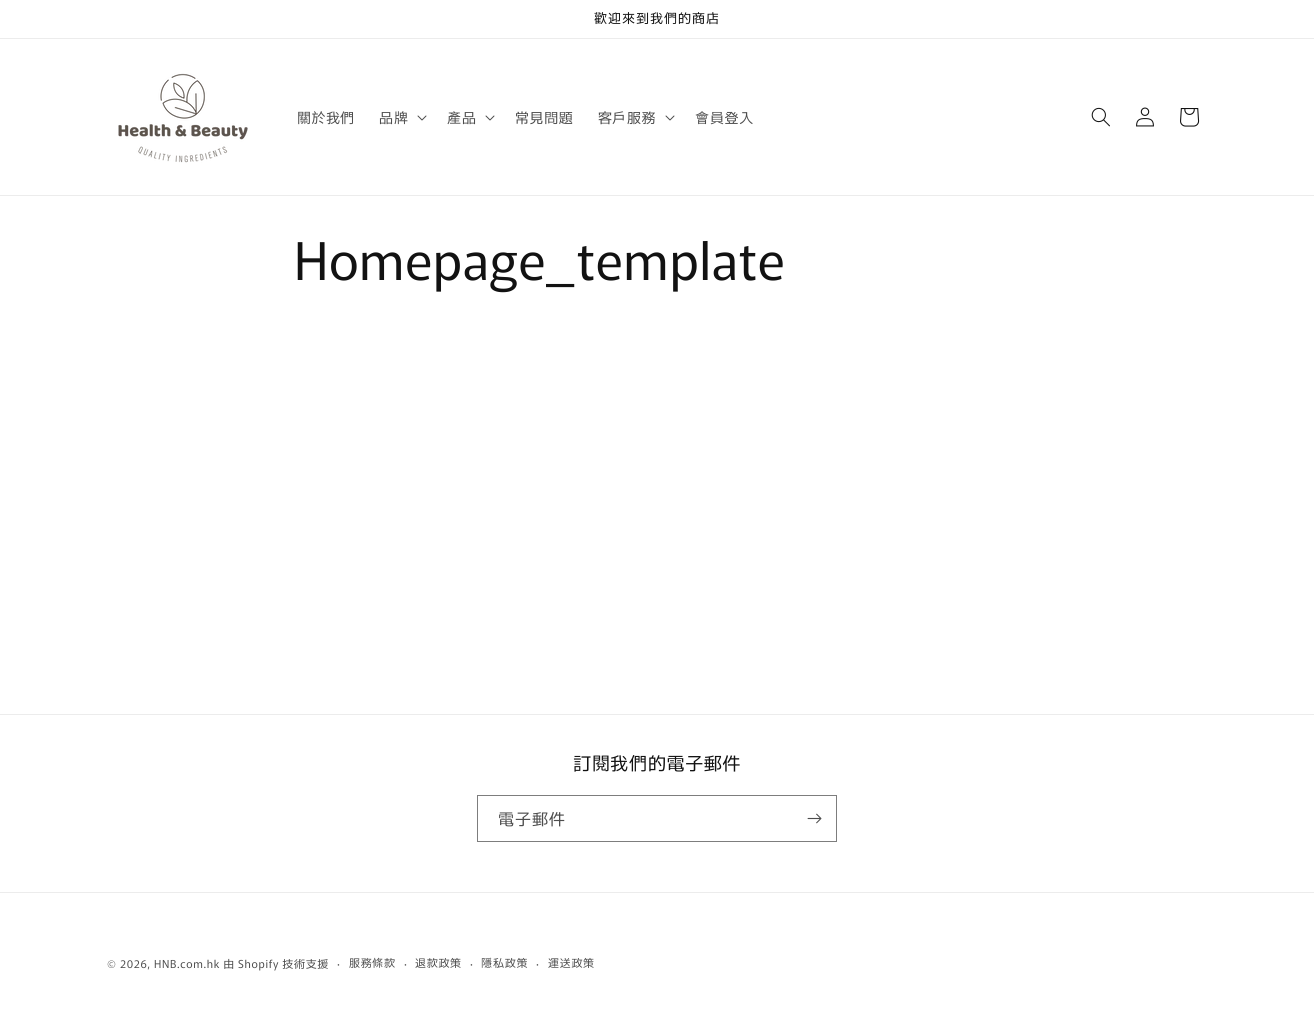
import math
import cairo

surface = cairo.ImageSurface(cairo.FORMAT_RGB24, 1314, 1009)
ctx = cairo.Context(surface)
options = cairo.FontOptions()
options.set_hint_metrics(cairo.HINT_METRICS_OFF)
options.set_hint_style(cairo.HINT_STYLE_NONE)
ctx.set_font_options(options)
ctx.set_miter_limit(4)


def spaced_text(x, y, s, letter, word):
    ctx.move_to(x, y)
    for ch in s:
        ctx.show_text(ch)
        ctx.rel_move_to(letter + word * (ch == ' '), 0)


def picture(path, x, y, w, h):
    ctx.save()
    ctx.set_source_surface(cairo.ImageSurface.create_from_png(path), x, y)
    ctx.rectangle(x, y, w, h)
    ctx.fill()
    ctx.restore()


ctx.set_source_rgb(1, 1, 1)
ctx.paint()
ctx.set_source_rgb(0.925, 0.925, 0.925)
ctx.rectangle(0, 38, 1314, 1)
ctx.fill()
ctx.select_font_face("Noto Sans CJK TC")
ctx.set_font_size(13)
ctx.set_source_rgb(0.071, 0.071, 0.071)
spaced_text(594, 23, "歡", 1, 0)
ctx.select_font_face("Murecho")
spaced_text(608, 23, "迎", 1, 0)
ctx.select_font_face("Noto Sans CJK TC")
spaced_text(622, 23, "來", 1, 0)
ctx.select_font_face("Murecho")
spaced_text(636, 23, "到我", 1, 0)
ctx.select_font_face("Noto Sans CJK TC")
spaced_text(664, 23, "們", 1, 0)
ctx.select_font_face("Murecho")
spaced_text(678, 23, "的商店", 1, 0)
ctx.set_source_rgb(0.925, 0.925, 0.925)
ctx.rectangle(0, 195, 1314, 1)
ctx.fill()
picture("img1.png", 118, 73, 130, 90)
ctx.select_font_face("Noto Sans CJK TC")
ctx.set_font_size(14)
ctx.set_source_rgb(0.302, 0.302, 0.302)
spaced_text(297, 123, "關於", 0.6, 0)
ctx.select_font_face("Murecho")
spaced_text(326, 123, "我", 0.6, 0)
ctx.select_font_face("Noto Sans CJK TC")
spaced_text(340, 123, "們", 0.6, 0)
ctx.select_font_face("Murecho")
spaced_text(379, 123, "品", 0.6, 0)
ctx.select_font_face("Noto Sans CJK TC")
spaced_text(394, 123, "牌", 0.6, 0)
picture("img2.png", 417, 115, 10, 6)
spaced_text(447, 123, "產", 0.6, 0)
ctx.select_font_face("Murecho")
spaced_text(462, 123, "品", 0.6, 0)
picture("img2.png", 485, 115, 10, 6)
spaced_text(515, 123, "常見問題", 0.6, 0)
spaced_text(598, 123, "客", 0.6, 0)
ctx.select_font_face("Noto Sans CJK TC")
spaced_text(612, 123, "戶", 0.6, 0)
ctx.select_font_face("Murecho")
spaced_text(627, 123, "服務", 0.6, 0)
picture("img2.png", 665, 115, 10, 6)
ctx.select_font_face("Noto Sans CJK TC")
spaced_text(695, 123, "會", 0.6, 0)
ctx.select_font_face("Murecho")
spaced_text(710, 123, "員登入", 0.6, 0)
picture("img3.png", 1091, 107, 19, 20)
picture("img4.png", 1136, 107, 18, 20)
picture("img5.png", 1180, 108, 20, 19)
ctx.set_font_size(52)
ctx.set_source_rgb(0.071, 0.071, 0.071)
spaced_text(294, 280, "Homepage_template", 0.6, 0)
ctx.set_source_rgb(0.925, 0.925, 0.925)
ctx.rectangle(0, 714, 1314, 1)
ctx.fill()
ctx.set_font_size(18)
ctx.set_source_rgb(0.071, 0.071, 0.071)
spaced_text(573, 770, "訂", 0.6, 0)
ctx.select_font_face("Noto Sans CJK TC")
spaced_text(592, 770, "閱", 0.6, 0)
ctx.select_font_face("Murecho")
spaced_text(610, 770, "我", 0.6, 0)
ctx.select_font_face("Noto Sans CJK TC")
spaced_text(629, 770, "們", 0.6, 0)
ctx.select_font_face("Murecho")
spaced_text(648, 770, "的電子郵件", 0.6, 0)
ctx.rectangle(477.5, 795.5, 359, 46)
ctx.set_source_rgb(0.49, 0.49, 0.49)
ctx.set_line_width(1)
ctx.stroke()
ctx.set_font_size(16)
ctx.set_source_rgb(0.302, 0.302, 0.302)
spaced_text(498, 825, "電子郵件", 1, 0)
picture("img6.png", 807, 813, 15, 11)
ctx.set_source_rgb(0.925, 0.925, 0.925)
ctx.rectangle(0, 892, 1314, 1)
ctx.fill()
ctx.set_font_size(11)
ctx.set_source_rgb(0.302, 0.302, 0.302)
spaced_text(107, 968, "© 2026, HNB.com.hk 由 Shopify 技術支援", 0.7, 0)
ctx.set_font_size(12)
spaced_text(337, 968, "·", 0.7, 0)
ctx.set_font_size(11)
spaced_text(349, 967, "服務", 0.7, 0)
ctx.select_font_face("Noto Sans CJK TC")
spaced_text(372, 967, "條", 0.7, 0)
ctx.select_font_face("Murecho")
spaced_text(384, 967, "款", 0.7, 0)
ctx.set_font_size(12)
spaced_text(404, 968, "·", 0.7, 0)
ctx.set_font_size(11)
spaced_text(415, 967, "退款政策", 0.7, 0)
ctx.set_font_size(12)
spaced_text(470, 968, "·", 0.7, 0)
ctx.select_font_face("Noto Sans CJK TC")
ctx.set_font_size(11)
spaced_text(481, 967, "隱", 0.7, 0)
ctx.select_font_face("Murecho")
spaced_text(493, 967, "私政策", 0.7, 0)
ctx.set_font_size(12)
spaced_text(536, 968, "·", 0.7, 0)
ctx.set_font_size(11)
spaced_text(548, 967, "運送政策", 0.7, 0)
surface.write_to_png("page.png")
